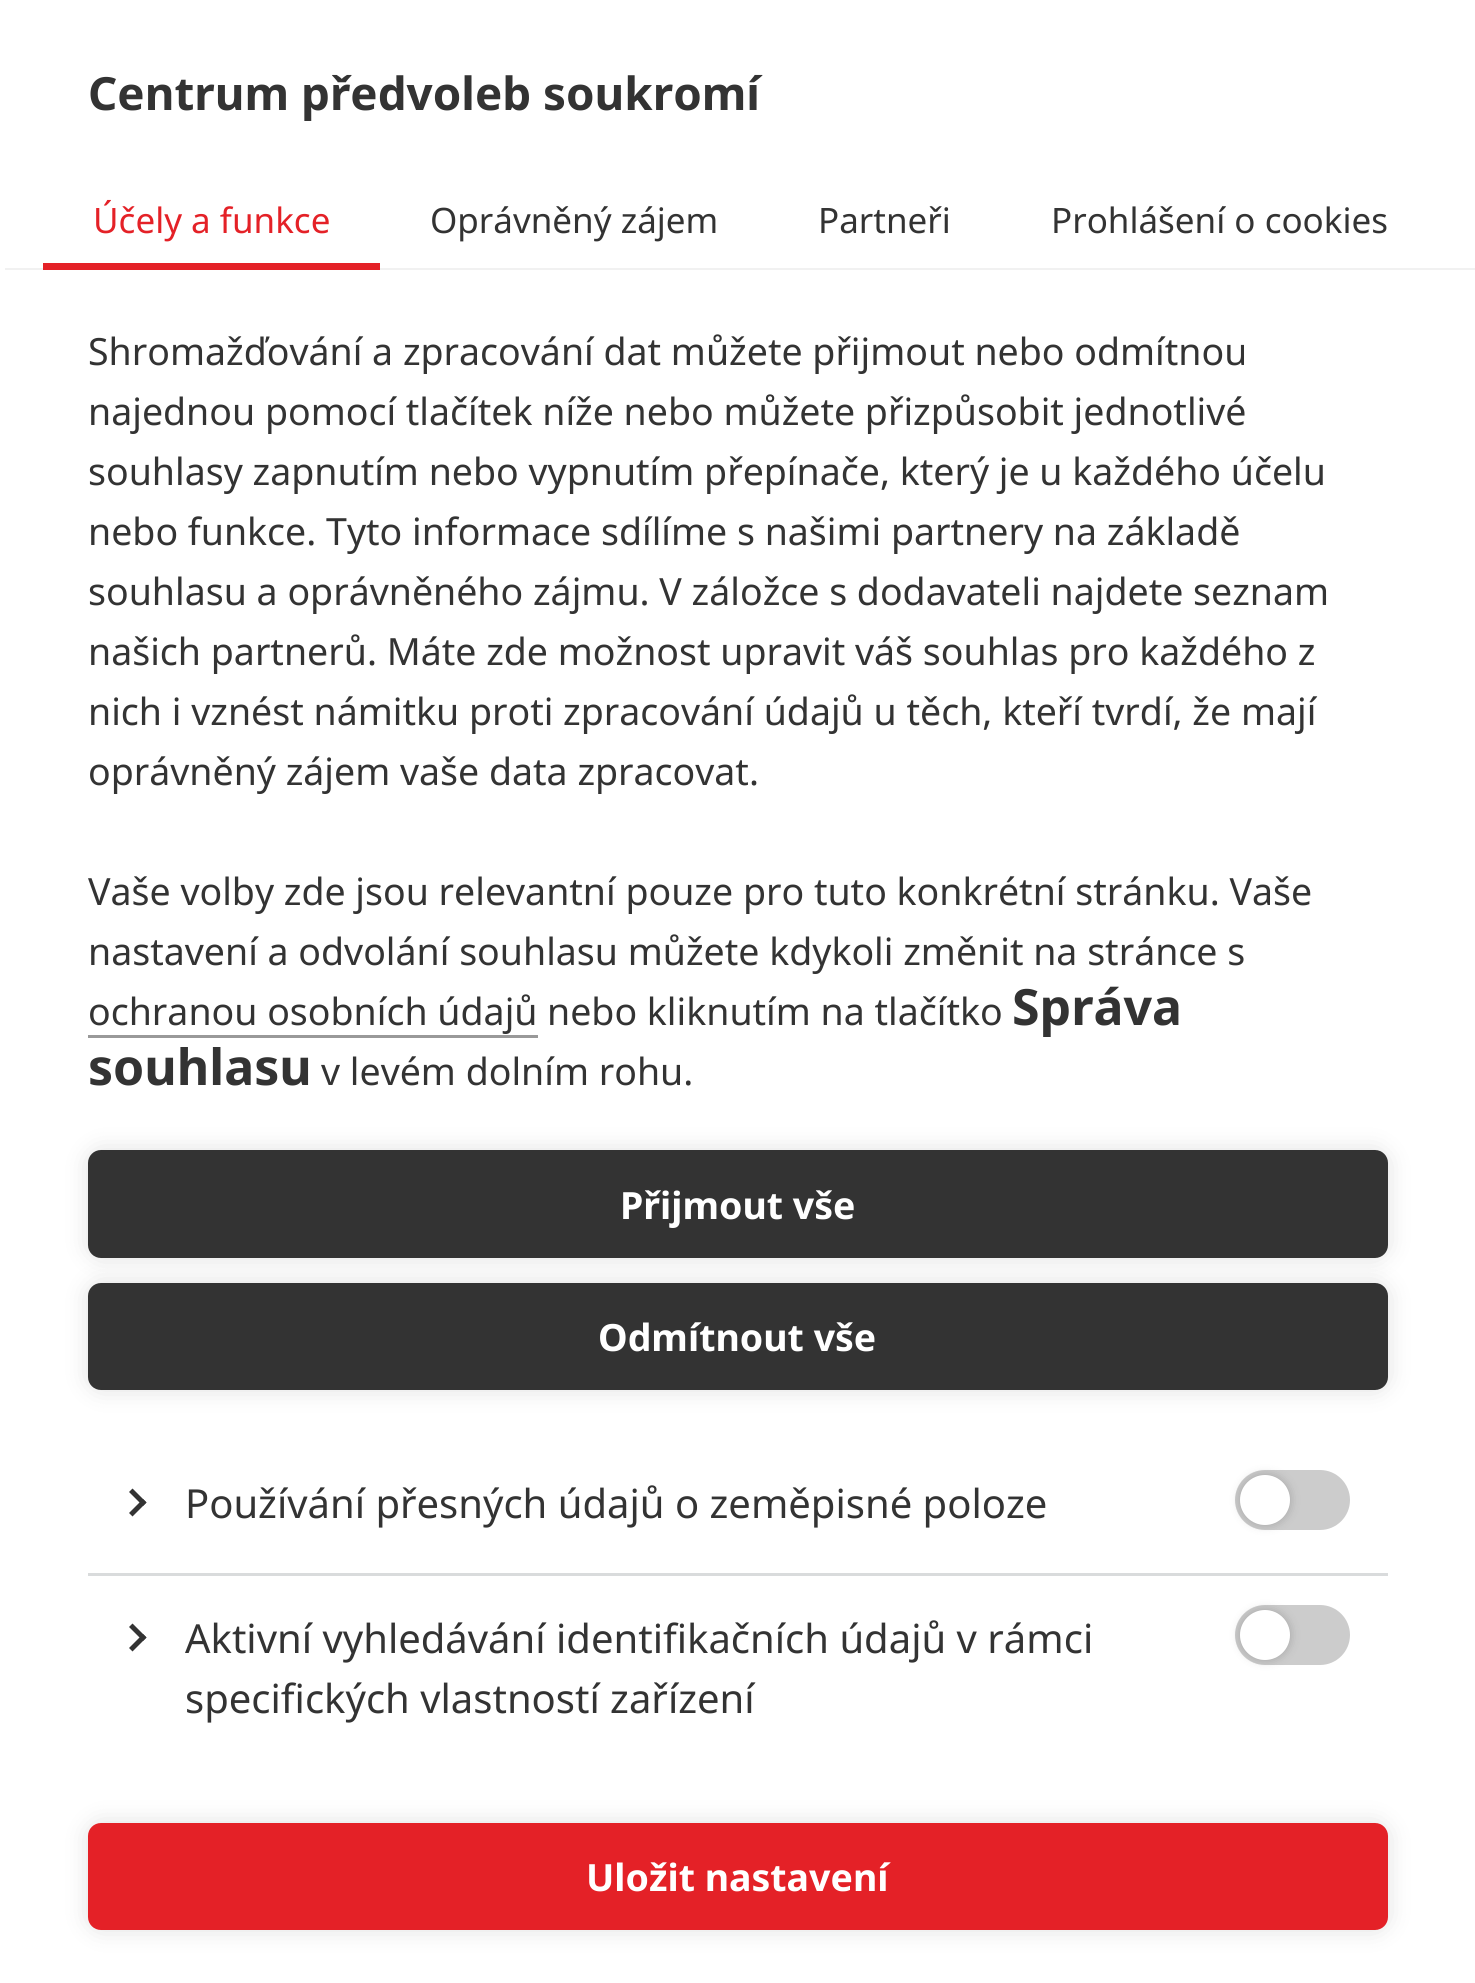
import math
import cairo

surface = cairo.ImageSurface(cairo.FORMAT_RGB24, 1475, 1983)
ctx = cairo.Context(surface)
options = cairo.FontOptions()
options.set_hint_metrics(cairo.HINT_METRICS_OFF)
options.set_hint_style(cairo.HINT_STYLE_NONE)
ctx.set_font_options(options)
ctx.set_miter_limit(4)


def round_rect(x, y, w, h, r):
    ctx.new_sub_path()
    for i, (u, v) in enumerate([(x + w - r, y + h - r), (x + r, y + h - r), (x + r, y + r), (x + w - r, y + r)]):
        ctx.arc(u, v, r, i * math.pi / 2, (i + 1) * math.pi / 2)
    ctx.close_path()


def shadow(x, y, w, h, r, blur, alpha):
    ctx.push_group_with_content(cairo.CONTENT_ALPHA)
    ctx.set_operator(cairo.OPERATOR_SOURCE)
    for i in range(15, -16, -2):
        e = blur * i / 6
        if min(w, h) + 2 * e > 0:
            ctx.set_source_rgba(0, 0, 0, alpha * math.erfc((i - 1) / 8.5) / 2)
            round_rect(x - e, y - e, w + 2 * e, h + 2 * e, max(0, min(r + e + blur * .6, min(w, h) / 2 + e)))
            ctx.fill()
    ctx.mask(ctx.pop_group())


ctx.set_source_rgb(1, 1, 1)
ctx.paint()
ctx.select_font_face("Noto Sans", cairo.FONT_SLANT_NORMAL, cairo.FONT_WEIGHT_BOLD)
ctx.set_font_size(45.75)
ctx.set_source_rgb(0.2, 0.2, 0.2)
ctx.move_to(88, 110)
ctx.show_text("Centrum předvoleb soukromí")
ctx.set_source_rgb(0.945, 0.945, 0.945)
ctx.rectangle(5, 268, 1470, 2)
ctx.fill()
ctx.set_source_rgb(0.894, 0.129, 0.153)
ctx.rectangle(43, 263, 337, 7)
ctx.fill()
ctx.select_font_face("Noto Sans")
ctx.set_font_size(35)
ctx.move_to(93, 233)
ctx.show_text("Účely a funkce")
ctx.set_source_rgb(0.2, 0.2, 0.2)
ctx.move_to(430, 233)
ctx.show_text("Oprávněný zájem")
ctx.move_to(818, 233)
ctx.show_text("Partneři")
ctx.move_to(1051, 233)
ctx.show_text("Prohlášení o cookies")
ctx.set_font_size(37.5)
ctx.move_to(88, 365)
ctx.show_text("Shromažďování a zpracování dat můžete přijmout nebo odmítnou")
ctx.move_to(88, 425)
ctx.show_text("najednou pomocí tlačítek níže nebo můžete přizpůsobit jednotlivé")
ctx.move_to(88, 485)
ctx.show_text("souhlasy zapnutím nebo vypnutím přepínače, který je u každého účelu")
ctx.move_to(88, 545)
ctx.show_text("nebo funkce. Tyto informace sdílíme s našimi partnery na základě")
ctx.move_to(88, 605)
ctx.show_text("souhlasu a oprávněného zájmu. V záložce s dodavateli najdete seznam")
ctx.move_to(88, 665)
ctx.show_text("našich partnerů. Máte zde možnost upravit váš souhlas pro každého z")
ctx.move_to(88, 725)
ctx.show_text("nich i vznést námitku proti zpracování údajů u těch, kteří tvrdí, že mají")
ctx.move_to(88, 785)
ctx.show_text("oprávněný zájem vaše data zpracovat.")
ctx.move_to(88, 905)
ctx.show_text("Vaše volby zde jsou relevantní pouze pro tuto konkrétní stránku. Vaše")
ctx.move_to(88, 965)
ctx.show_text("nastavení a odvolání souhlasu můžete kdykoli změnit na stránce s")
ctx.move_to(88, 1025)
ctx.show_text("ochranou osobních údajů")
ctx.set_source_rgb(0.6, 0.6, 0.6)
ctx.rectangle(88, 1035, 450, 3)
ctx.fill()
ctx.set_source_rgb(0.2, 0.2, 0.2)
ctx.move_to(547, 1025)
ctx.show_text("nebo kliknutím na tlačítko")
ctx.select_font_face("Noto Sans", cairo.FONT_SLANT_NORMAL, cairo.FONT_WEIGHT_BOLD)
ctx.set_font_size(50)
ctx.move_to(1012, 1025)
ctx.show_text("Správa")
ctx.move_to(88, 1085)
ctx.show_text("souhlasu")
ctx.select_font_face("Noto Sans")
ctx.set_font_size(37.5)
ctx.move_to(321, 1085)
ctx.show_text("v levém dolním rohu.")
ctx.set_source_rgb(0, 0, 0)
shadow(88, 1150, 1300, 108, 13, 12.5, 0.12)
ctx.set_source_rgb(0.2, 0.2, 0.2)
round_rect(88, 1150, 1300, 108, 13)
ctx.fill()
ctx.select_font_face("Noto Sans", cairo.FONT_SLANT_NORMAL, cairo.FONT_WEIGHT_BOLD)
ctx.set_source_rgb(1, 1, 1)
ctx.move_to(620, 1219)
ctx.show_text("Přijmout vše")
ctx.set_source_rgb(0, 0, 0)
shadow(88, 1283, 1300, 107, 13, 12.5, 0.12)
ctx.set_source_rgb(0.2, 0.2, 0.2)
round_rect(88, 1283, 1300, 107, 13)
ctx.fill()
ctx.set_source_rgb(1, 1, 1)
ctx.move_to(598, 1351)
ctx.show_text("Odmítnout vše")
ctx.set_source_rgb(0.851, 0.859, 0.863)
ctx.rectangle(88, 1573, 1300, 3)
ctx.fill()
ctx.set_source_rgb(0.2, 0.2, 0.2)
ctx.new_path()
ctx.move_to(129, 1492)
ctx.line_to(132.5, 1488.5)
ctx.line_to(146.5, 1502.5)
ctx.line_to(143, 1506)
ctx.close_path()
ctx.fill()
ctx.new_path()
ctx.move_to(129, 1513)
ctx.line_to(143, 1499)
ctx.line_to(146.5, 1502.5)
ctx.line_to(132.5, 1516.5)
ctx.close_path()
ctx.fill()
ctx.select_font_face("Noto Sans")
ctx.set_font_size(40)
ctx.move_to(185, 1518)
ctx.show_text("Používání přesných údajů o zeměpisné poloze")
ctx.set_source_rgb(0.8, 0.8, 0.8)
round_rect(1235, 1470, 115, 60, 30)
ctx.fill()
ctx.set_source_rgb(0, 0, 0)
shadow(1240, 1475, 50, 50, 25, 5, 0.2)
ctx.set_source_rgb(1, 1, 1)
ctx.arc(1265, 1500, 25, 0, 2 * math.pi)
ctx.fill()
ctx.set_source_rgb(0.2, 0.2, 0.2)
ctx.new_path()
ctx.move_to(129, 1627)
ctx.line_to(132.5, 1623.5)
ctx.line_to(146.5, 1637.5)
ctx.line_to(143, 1641)
ctx.close_path()
ctx.fill()
ctx.new_path()
ctx.move_to(129, 1648)
ctx.line_to(143, 1634)
ctx.line_to(146.5, 1637.5)
ctx.line_to(132.5, 1651.5)
ctx.close_path()
ctx.fill()
ctx.move_to(185, 1653)
ctx.show_text("Aktivní vyhledávání identifikačních údajů v rámci")
ctx.move_to(185, 1713)
ctx.show_text("specifických vlastností zařízení")
ctx.set_source_rgb(0.8, 0.8, 0.8)
round_rect(1235, 1605, 115, 60, 30)
ctx.fill()
ctx.set_source_rgb(0, 0, 0)
shadow(1240, 1610, 50, 50, 25, 5, 0.2)
ctx.set_source_rgb(1, 1, 1)
ctx.arc(1265, 1635, 25, 0, 2 * math.pi)
ctx.fill()
ctx.set_source_rgb(0, 0, 0)
shadow(88, 1823, 1300, 107, 13, 12.5, 0.12)
ctx.set_source_rgb(0.894, 0.129, 0.153)
round_rect(88, 1823, 1300, 107, 13)
ctx.fill()
ctx.select_font_face("Noto Sans", cairo.FONT_SLANT_NORMAL, cairo.FONT_WEIGHT_BOLD)
ctx.set_font_size(37.5)
ctx.set_source_rgb(1, 1, 1)
ctx.move_to(586, 1891)
ctx.show_text("Uložit nastavení")
surface.write_to_png("page.png")
